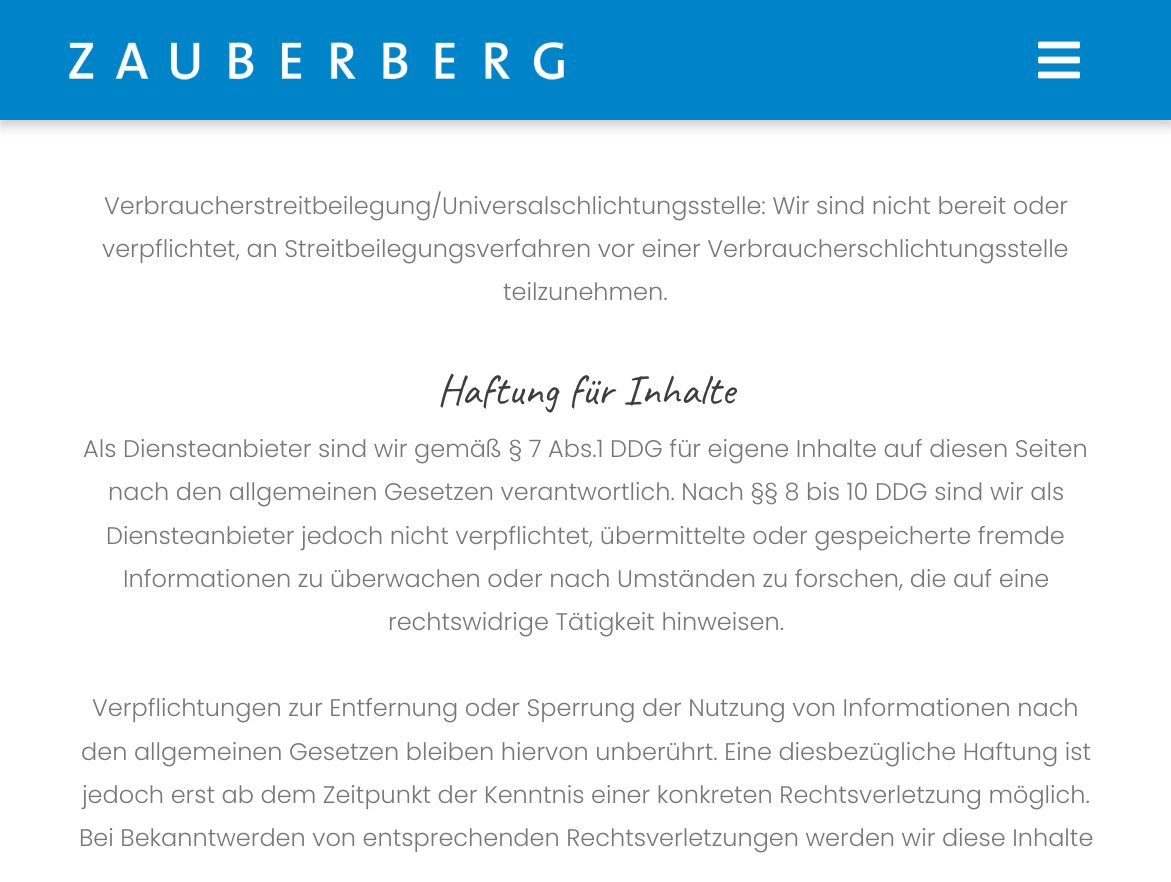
import math
import cairo

surface = cairo.ImageSurface(cairo.FORMAT_RGB24, 1171, 882)
ctx = cairo.Context(surface)
options = cairo.FontOptions()
options.set_hint_metrics(cairo.HINT_METRICS_OFF)
options.set_hint_style(cairo.HINT_STYLE_NONE)
ctx.set_font_options(options)
ctx.set_miter_limit(4)


def round_rect(x, y, w, h, r):
    ctx.new_sub_path()
    for i, (u, v) in enumerate([(x + w - r, y + h - r), (x + r, y + h - r), (x + r, y + r), (x + w - r, y + r)]):
        ctx.arc(u, v, r, i * math.pi / 2, (i + 1) * math.pi / 2)
    ctx.close_path()


def shadow(x, y, w, h, r, blur, alpha):
    ctx.push_group_with_content(cairo.CONTENT_ALPHA)
    ctx.set_operator(cairo.OPERATOR_SOURCE)
    for i in range(15, -16, -2):
        e = blur * i / 6
        if min(w, h) + 2 * e > 0:
            ctx.set_source_rgba(0, 0, 0, alpha * math.erfc((i - 1) / 8.5) / 2)
            round_rect(x - e, y - e, w + 2 * e, h + 2 * e, max(0, min(r + e + blur * .6, min(w, h) / 2 + e)))
            ctx.fill()
    ctx.mask(ctx.pop_group())


def picture(path, x, y, w, h):
    ctx.save()
    ctx.set_source_surface(cairo.ImageSurface.create_from_png(path), x, y)
    ctx.rectangle(x, y, w, h)
    ctx.fill()
    ctx.restore()


ctx.set_source_rgb(1, 1, 1)
ctx.paint()
ctx.set_source_rgb(0, 0, 0)
shadow(0, 6, 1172, 120, 0, 6, 0.2)
ctx.set_source_rgb(0, 0.518, 0.788)
ctx.rectangle(0, 0, 1171, 120)
ctx.fill()
picture("img1.png", 69, 42, 495, 38)
picture("img2.png", 1038, 41, 42, 38)
ctx.select_font_face("Poppins Light")
ctx.set_font_size(24)
ctx.set_source_rgb(0.467, 0.467, 0.467)
ctx.move_to(104, 214)
ctx.show_text("Verbraucherstreitbeilegung/Universalschlichtungsstelle: Wir sind nicht bereit oder")
ctx.move_to(102, 257)
ctx.show_text("verpflichtet, an Streitbeilegungsverfahren vor einer Verbraucherschlichtungsstelle")
ctx.move_to(503, 300)
ctx.show_text("teilzunehmen.")
ctx.select_font_face("Caveat")
ctx.set_font_size(43.25)
ctx.set_source_rgb(0.239, 0.239, 0.239)
ctx.move_to(437, 404)
ctx.show_text("Haftung für Inhalte")
ctx.select_font_face("Poppins Light")
ctx.set_font_size(24)
ctx.set_source_rgb(0.467, 0.467, 0.467)
ctx.move_to(83, 457)
ctx.show_text("Als Diensteanbieter sind wir gemäß § 7 Abs.1 DDG für eigene Inhalte auf diesen Seiten")
ctx.move_to(108, 500)
ctx.show_text("nach den allgemeinen Gesetzen verantwortlich. Nach §§ 8 bis 10 DDG sind wir als")
ctx.move_to(106, 544)
ctx.show_text("Diensteanbieter jedoch nicht verpflichtet, übermittelte oder gespeicherte fremde")
ctx.move_to(123, 587)
ctx.show_text("Informationen zu überwachen oder nach Umständen zu forschen, die auf eine")
ctx.move_to(388, 630)
ctx.show_text("rechtswidrige Tätigkeit hinweisen.")
ctx.move_to(92, 716)
ctx.show_text("Verpflichtungen zur Entfernung oder Sperrung der Nutzung von Informationen nach")
ctx.move_to(81, 760)
ctx.show_text("den allgemeinen Gesetzen bleiben hiervon unberührt. Eine diesbezügliche Haftung ist")
ctx.move_to(82, 803)
ctx.show_text("jedoch erst ab dem Zeitpunkt der Kenntnis einer konkreten Rechtsverletzung möglich.")
ctx.move_to(79, 846)
ctx.show_text("Bei Bekanntwerden von entsprechenden Rechtsverletzungen werden wir diese Inhalte")
surface.write_to_png("page.png")
